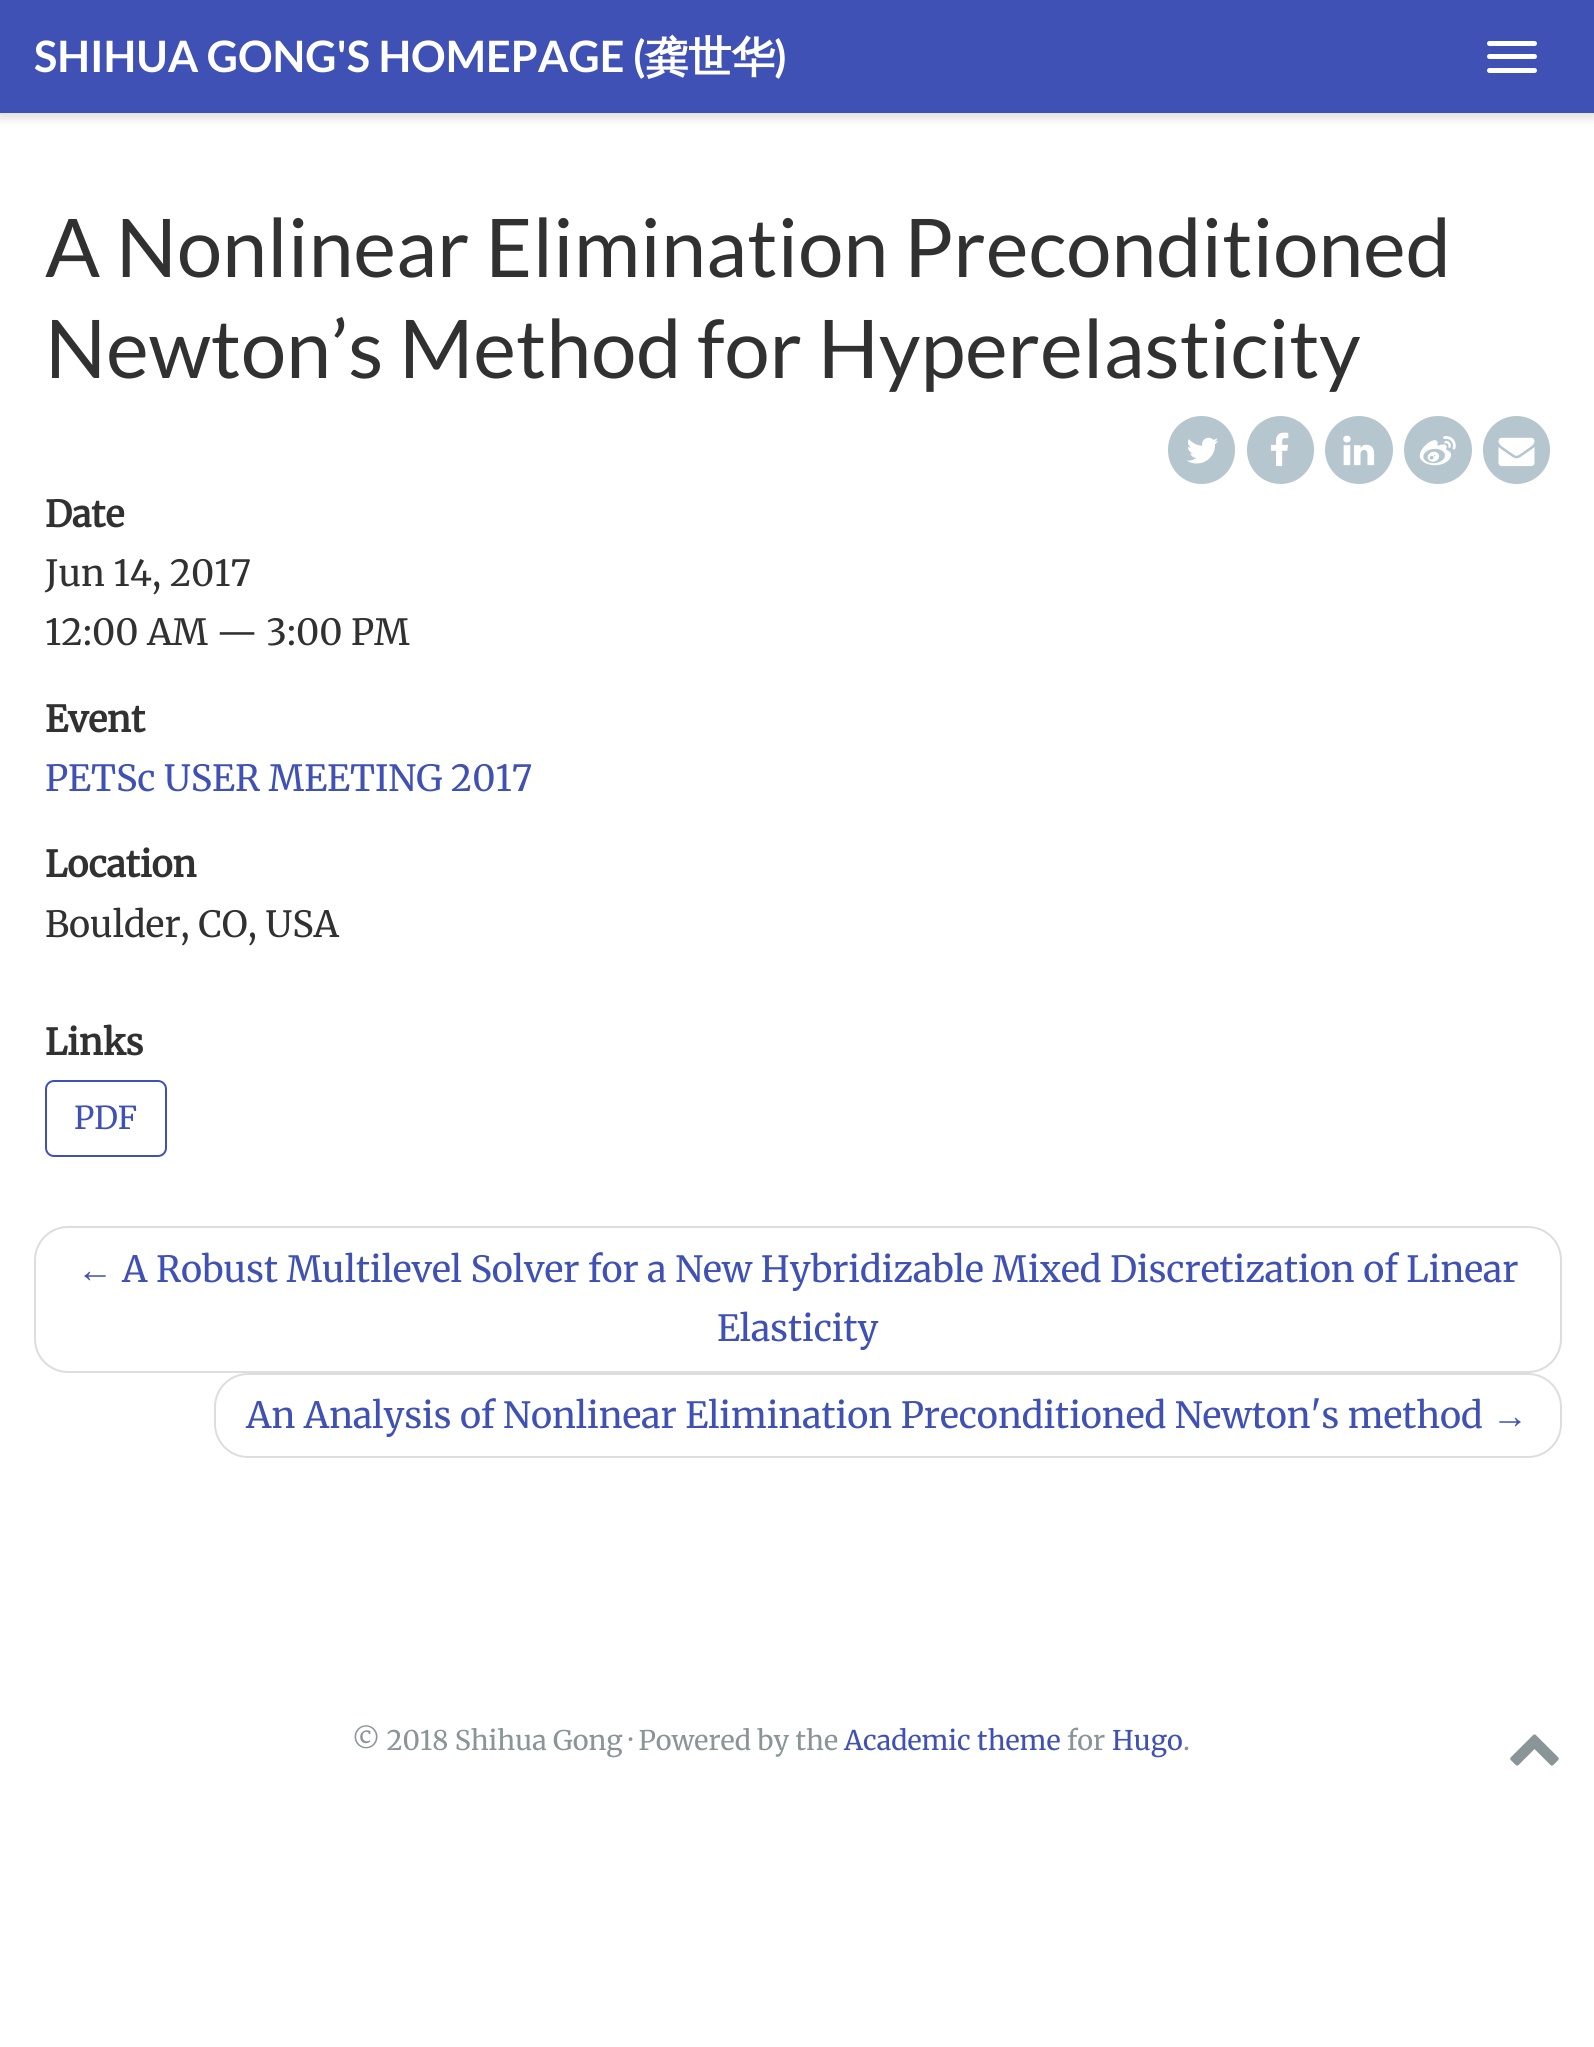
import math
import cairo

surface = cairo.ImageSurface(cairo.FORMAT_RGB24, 1594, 2047)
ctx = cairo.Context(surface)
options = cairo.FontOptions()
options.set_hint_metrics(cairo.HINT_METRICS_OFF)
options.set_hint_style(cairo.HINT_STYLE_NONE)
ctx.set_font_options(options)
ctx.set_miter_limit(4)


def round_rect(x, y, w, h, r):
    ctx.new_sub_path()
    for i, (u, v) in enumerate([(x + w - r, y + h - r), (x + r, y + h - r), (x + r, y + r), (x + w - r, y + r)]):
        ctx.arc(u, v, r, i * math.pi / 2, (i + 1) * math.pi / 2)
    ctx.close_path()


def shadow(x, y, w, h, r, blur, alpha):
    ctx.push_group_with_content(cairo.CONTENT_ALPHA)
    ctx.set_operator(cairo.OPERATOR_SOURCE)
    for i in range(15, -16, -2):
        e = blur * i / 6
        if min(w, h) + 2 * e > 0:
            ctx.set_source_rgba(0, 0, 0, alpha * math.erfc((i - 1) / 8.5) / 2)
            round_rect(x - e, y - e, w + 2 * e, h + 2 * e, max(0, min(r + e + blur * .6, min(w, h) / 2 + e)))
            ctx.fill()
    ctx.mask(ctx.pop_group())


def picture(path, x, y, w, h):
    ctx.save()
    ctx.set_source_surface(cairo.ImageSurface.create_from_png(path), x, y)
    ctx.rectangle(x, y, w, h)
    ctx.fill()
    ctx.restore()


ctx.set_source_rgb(1, 1, 1)
ctx.paint()
ctx.set_source_rgb(0, 0, 0)
shadow(0, 5, 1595, 114, 0, 4.5, 0.11)
ctx.set_source_rgb(0.247, 0.318, 0.71)
ctx.rectangle(0, 0, 1594, 113)
ctx.fill()
ctx.set_source_rgb(0.906, 0.906, 0.906)
ctx.rectangle(0, 113, 1594, 2)
ctx.fill()
ctx.select_font_face("Lato", cairo.FONT_SLANT_NORMAL, cairo.FONT_WEIGHT_BOLD)
ctx.set_font_size(43.25)
ctx.set_source_rgb(1, 1, 1)
ctx.move_to(34, 72)
ctx.show_text("SHIHUA GONG'S HOMEPAGE (")
ctx.select_font_face("WenQuanYi Zen Hei", cairo.FONT_SLANT_NORMAL, cairo.FONT_WEIGHT_BOLD)
ctx.move_to(645, 72)
ctx.show_text("龚世华")
ctx.select_font_face("Lato", cairo.FONT_SLANT_NORMAL, cairo.FONT_WEIGHT_BOLD)
ctx.move_to(774, 72)
ctx.show_text(")")
round_rect(1487, 41, 50, 5, 2.5)
ctx.fill()
round_rect(1487, 54, 50, 5, 2.5)
ctx.fill()
round_rect(1487, 68, 50, 5, 2.5)
ctx.fill()
ctx.select_font_face("Lato")
ctx.set_font_size(81)
ctx.set_source_rgb(0.192, 0.192, 0.192)
ctx.move_to(45, 277)
ctx.show_text("A Nonlinear Elimination Preconditioned")
ctx.move_to(45, 378)
ctx.show_text("Newton’s Method for Hyperelasticity")
ctx.set_source_rgb(0.71, 0.776, 0.808)
round_rect(1168, 416, 67, 68, 33.5)
ctx.fill()
picture("img1.png", 1187, 437, 31, 27)
round_rect(1247, 416, 67, 68, 33.5)
ctx.fill()
picture("img2.png", 1270, 432, 19, 35)
ctx.arc(1359, 450, 34, 0, 2 * math.pi)
ctx.fill()
picture("img3.png", 1343, 435, 32, 31)
ctx.arc(1438, 450, 34, 0, 2 * math.pi)
ctx.fill()
picture("img4.png", 1419, 436, 37, 30)
round_rect(1483, 416, 67, 68, 33.5)
ctx.fill()
picture("img5.png", 1498, 437, 37, 30)
ctx.select_font_face("Merriweather", cairo.FONT_SLANT_NORMAL, cairo.FONT_WEIGHT_BOLD)
ctx.set_font_size(36)
ctx.set_source_rgb(0.192, 0.192, 0.192)
ctx.move_to(45, 527)
ctx.show_text("Date")
ctx.select_font_face("Merriweather Light")
ctx.move_to(45, 586)
ctx.show_text("Jun 14, 2017")
ctx.move_to(45, 645)
ctx.show_text("12:00 AM — 3:00 PM")
ctx.select_font_face("Merriweather", cairo.FONT_SLANT_NORMAL, cairo.FONT_WEIGHT_BOLD)
ctx.move_to(45, 732)
ctx.show_text("Event")
ctx.select_font_face("Merriweather Light")
ctx.set_source_rgb(0.247, 0.318, 0.71)
ctx.move_to(45, 791)
ctx.show_text("PETSc USER MEETING 2017")
ctx.select_font_face("Merriweather", cairo.FONT_SLANT_NORMAL, cairo.FONT_WEIGHT_BOLD)
ctx.set_source_rgb(0.192, 0.192, 0.192)
ctx.move_to(45, 877)
ctx.show_text("Location")
ctx.select_font_face("Merriweather Light")
ctx.move_to(45, 937)
ctx.show_text("Boulder, CO, USA")
ctx.select_font_face("Merriweather", cairo.FONT_SLANT_NORMAL, cairo.FONT_WEIGHT_BOLD)
ctx.move_to(45, 1055)
ctx.show_text("Links")
round_rect(46, 1081, 120, 75, 8)
ctx.set_source_rgb(0.247, 0.318, 0.71)
ctx.stroke()
ctx.select_font_face("Merriweather Light")
ctx.set_font_size(31.5)
ctx.move_to(74, 1129)
ctx.show_text("PDF")
round_rect(35, 1227, 1526, 145, 33)
ctx.set_source_rgb(0.867, 0.867, 0.867)
ctx.stroke()
ctx.select_font_face("Liberation Sans")
ctx.set_font_size(36)
ctx.set_source_rgb(0.247, 0.318, 0.71)
ctx.move_to(77, 1282)
ctx.show_text("←")
ctx.select_font_face("Merriweather Light")
ctx.move_to(122, 1282)
ctx.show_text("A Robust Multilevel Solver for a New Hybridizable Mixed Discretization of Linear")
ctx.move_to(717, 1341)
ctx.show_text("Elasticity")
round_rect(215, 1374, 1346, 83, 33)
ctx.set_source_rgb(0.867, 0.867, 0.867)
ctx.stroke()
ctx.set_source_rgb(0.247, 0.318, 0.71)
ctx.move_to(246, 1428)
ctx.show_text("An Analysis of Nonlinear Elimination Preconditioned Newton's method")
ctx.select_font_face("Liberation Sans")
ctx.move_to(1492, 1428)
ctx.show_text("→")
ctx.select_font_face("Merriweather Light")
ctx.set_font_size(27)
ctx.set_source_rgb(0.537, 0.584, 0.588)
ctx.move_to(352, 1750)
ctx.show_text("© 2018 Shihua Gong · Powered by the")
ctx.set_source_rgb(0.247, 0.318, 0.71)
ctx.move_to(844, 1750)
ctx.show_text("Academic theme")
ctx.set_source_rgb(0.537, 0.584, 0.588)
ctx.move_to(1067, 1750)
ctx.show_text("for")
ctx.set_source_rgb(0.247, 0.318, 0.71)
ctx.move_to(1112, 1750)
ctx.show_text("Hugo")
ctx.set_source_rgb(0.537, 0.584, 0.588)
ctx.move_to(1183, 1750)
ctx.show_text(".")
picture("img6.png", 1510, 1734, 49, 32)
surface.write_to_png("page.png")
